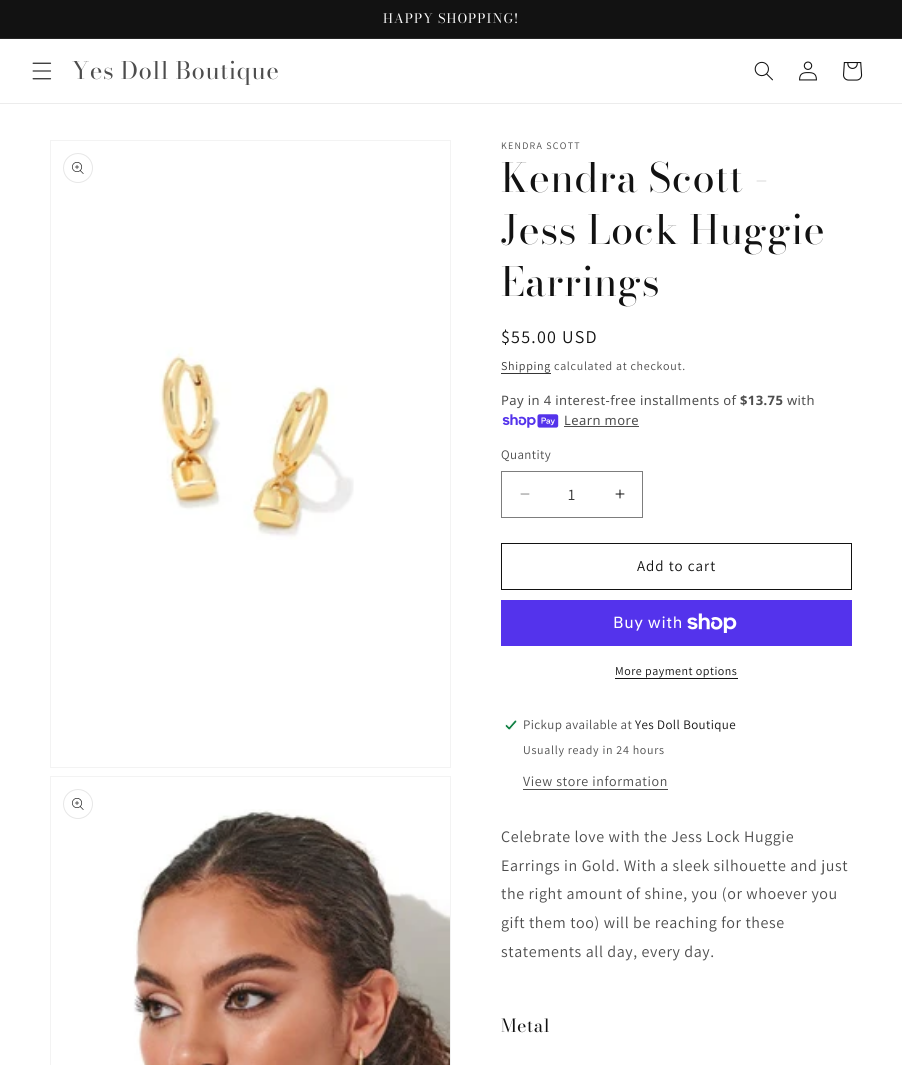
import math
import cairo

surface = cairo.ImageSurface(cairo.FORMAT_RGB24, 902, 1065)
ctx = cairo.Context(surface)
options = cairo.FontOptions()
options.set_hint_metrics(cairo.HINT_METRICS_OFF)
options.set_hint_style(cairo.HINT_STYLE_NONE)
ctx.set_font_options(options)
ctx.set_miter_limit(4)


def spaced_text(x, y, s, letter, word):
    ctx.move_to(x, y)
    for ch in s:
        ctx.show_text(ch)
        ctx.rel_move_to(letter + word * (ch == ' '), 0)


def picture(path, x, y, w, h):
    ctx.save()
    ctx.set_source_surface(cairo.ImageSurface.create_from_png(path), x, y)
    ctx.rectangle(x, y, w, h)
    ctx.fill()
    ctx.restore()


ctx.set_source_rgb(1, 1, 1)
ctx.paint()
ctx.set_source_rgb(0.071, 0.071, 0.071)
ctx.rectangle(0, 0, 902, 38)
ctx.fill()
ctx.set_source_rgb(0.145, 0.145, 0.145)
ctx.rectangle(0, 38, 902, 1)
ctx.fill()
ctx.select_font_face("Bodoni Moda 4")
ctx.set_font_size(13)
ctx.set_source_rgb(1, 1, 1)
spaced_text(383, 23, "HAPPY SHOPPING!", 1, 0)
ctx.set_source_rgb(0.925, 0.925, 0.925)
ctx.rectangle(0, 103, 902, 1)
ctx.fill()
picture("img1.png", 32, 62, 20, 18)
ctx.select_font_face("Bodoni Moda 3")
ctx.set_font_size(24)
ctx.set_source_rgb(0.302, 0.302, 0.302)
spaced_text(72, 79, "Yes Doll Boutique", 0.6, 0)
picture("img2.png", 754, 61, 19, 20)
picture("img3.png", 799, 61, 18, 20)
picture("img4.png", 843, 62, 20, 19)
ctx.rectangle(50.5, 140.5, 400, 627)
ctx.set_source_rgb(0.953, 0.953, 0.953)
ctx.set_line_width(1)
ctx.stroke()
ctx.arc(78, 168, 14.5, 0, 2 * math.pi)
ctx.set_source_rgb(0.906, 0.906, 0.906)
ctx.stroke()
picture("img5.png", 72, 162, 12, 12)
picture("img6.png", 159, 347, 195, 193)
ctx.rectangle(50.5, 776.5, 400, 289)
ctx.set_source_rgb(0.953, 0.953, 0.953)
ctx.stroke()
ctx.arc(78, 804, 14.5, 0, 2 * math.pi)
ctx.set_source_rgb(0.906, 0.906, 0.906)
ctx.stroke()
picture("img5.png", 72, 798, 12, 12)
picture("img7.png", 133, 809, 317, 256)
ctx.select_font_face("Assistant")
ctx.set_font_size(10)
ctx.set_source_rgb(0.302, 0.302, 0.302)
spaced_text(501, 149, "KENDRA SCOTT", 1.25, 0)
ctx.select_font_face("Bodoni Moda")
ctx.set_font_size(40)
ctx.set_source_rgb(0.071, 0.071, 0.071)
spaced_text(501, 192, "Kendra Scott -", 0.6, 0)
spaced_text(501, 244, "Jess Lock Huggie", 0.6, 0)
spaced_text(501, 296, "Earrings", 0.6, 0)
ctx.select_font_face("Assistant")
ctx.set_font_size(18)
spaced_text(501, 343, "$55.00 USD", 1.25, 0)
ctx.set_font_size(12)
ctx.set_source_rgb(0.212, 0.212, 0.212)
spaced_text(501, 370, "Shipping", 0.7, 0)
ctx.rectangle(501, 373, 50, 1)
ctx.fill()
ctx.set_source_rgb(0.302, 0.302, 0.302)
spaced_text(554, 370, "calculated at checkout.", 0.7, 0)
ctx.select_font_face("Noto Sans")
ctx.set_font_size(13)
spaced_text(501, 405, "Pay in 4 interest-free installments of", 0.4, 0)
ctx.select_font_face("Noto Sans", cairo.FONT_SLANT_NORMAL, cairo.FONT_WEIGHT_BOLD)
spaced_text(740, 405, "$13.75", 0.4, 0)
ctx.select_font_face("Noto Sans")
spaced_text(787, 405, "with", 0.4, 0)
picture("img8.png", 502, 414, 57, 14)
spaced_text(564, 425, "Learn more", 0.4, 0)
ctx.rectangle(564, 426, 75, 1)
ctx.fill()
ctx.select_font_face("Assistant")
spaced_text(501, 459, "Quantity", 0.4, 0)
picture("img9.png", 520, 493, 10, 2)
picture("img10.png", 615, 489, 10, 10)
ctx.rectangle(501.5, 471.5, 141, 46)
ctx.set_source_rgb(0.49, 0.49, 0.49)
ctx.stroke()
ctx.set_font_size(16)
ctx.set_source_rgb(0.212, 0.212, 0.212)
ctx.move_to(568, 500)
ctx.show_text("1")
ctx.rectangle(501.5, 543.5, 350, 46)
ctx.set_source_rgb(0.071, 0.071, 0.071)
ctx.stroke()
ctx.set_font_size(15)
spaced_text(637, 571, "Add to cart", 1, 0)
ctx.set_source_rgb(0.329, 0.2, 0.922)
ctx.rectangle(501, 600, 351, 46)
ctx.fill()
ctx.select_font_face("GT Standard")
ctx.set_font_size(16)
ctx.set_source_rgb(1, 1, 1)
spaced_text(613, 628, "Buy with", 0.6, 0)
picture("img11.png", 687, 613, 50, 20)
ctx.select_font_face("Assistant")
ctx.set_font_size(12)
ctx.set_source_rgb(0.071, 0.071, 0.071)
spaced_text(615, 675, "More payment options", 0.5, 0)
ctx.rectangle(615, 678, 123, 1)
ctx.fill()
picture("img12.png", 505, 720, 12, 10)
ctx.set_font_size(13)
ctx.set_source_rgb(0.302, 0.302, 0.302)
spaced_text(523, 729, "Pickup available at", 0.4, 0)
ctx.set_source_rgb(0.071, 0.071, 0.071)
spaced_text(635, 729, "Yes Doll Boutique", 0.4, 0)
ctx.set_font_size(12)
ctx.set_source_rgb(0.302, 0.302, 0.302)
spaced_text(523, 754, "Usually ready in 24 hours", 0.7, 0)
ctx.set_font_size(14)
spaced_text(523, 786, "View store information", 0.6, 0)
ctx.rectangle(523, 789, 145, 1)
ctx.fill()
ctx.set_font_size(16)
spaced_text(501, 842, "Celebrate love with the Jess Lock Huggie", 0.6, 0)
spaced_text(501, 871, "Earrings in Gold. With a sleek silhouette and just", 0.6, 0)
spaced_text(501, 899, "the right amount of shine, you (or whoever you", 0.6, 0)
spaced_text(501, 928, "gift them too) will be reaching for these", 0.6, 0)
spaced_text(501, 957, "statements all day, every day.", 0.6, 0)
ctx.select_font_face("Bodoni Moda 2")
ctx.set_font_size(18)
ctx.set_source_rgb(0.071, 0.071, 0.071)
spaced_text(501, 1032, "Metal", 0.6, 0)
surface.write_to_png("page.png")
